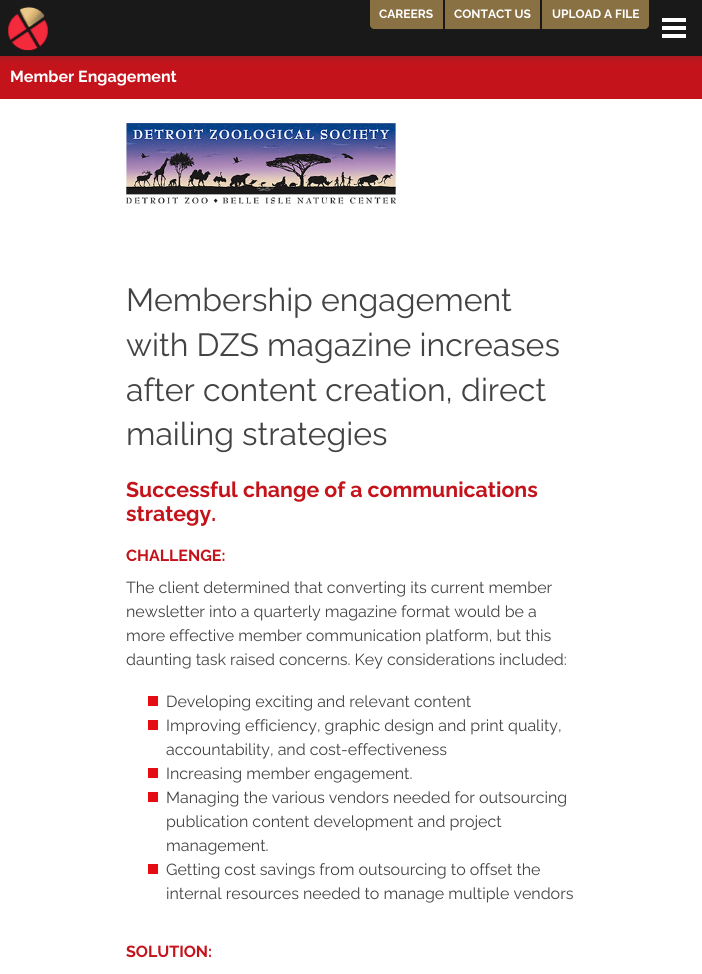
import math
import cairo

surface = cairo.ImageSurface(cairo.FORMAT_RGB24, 702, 974)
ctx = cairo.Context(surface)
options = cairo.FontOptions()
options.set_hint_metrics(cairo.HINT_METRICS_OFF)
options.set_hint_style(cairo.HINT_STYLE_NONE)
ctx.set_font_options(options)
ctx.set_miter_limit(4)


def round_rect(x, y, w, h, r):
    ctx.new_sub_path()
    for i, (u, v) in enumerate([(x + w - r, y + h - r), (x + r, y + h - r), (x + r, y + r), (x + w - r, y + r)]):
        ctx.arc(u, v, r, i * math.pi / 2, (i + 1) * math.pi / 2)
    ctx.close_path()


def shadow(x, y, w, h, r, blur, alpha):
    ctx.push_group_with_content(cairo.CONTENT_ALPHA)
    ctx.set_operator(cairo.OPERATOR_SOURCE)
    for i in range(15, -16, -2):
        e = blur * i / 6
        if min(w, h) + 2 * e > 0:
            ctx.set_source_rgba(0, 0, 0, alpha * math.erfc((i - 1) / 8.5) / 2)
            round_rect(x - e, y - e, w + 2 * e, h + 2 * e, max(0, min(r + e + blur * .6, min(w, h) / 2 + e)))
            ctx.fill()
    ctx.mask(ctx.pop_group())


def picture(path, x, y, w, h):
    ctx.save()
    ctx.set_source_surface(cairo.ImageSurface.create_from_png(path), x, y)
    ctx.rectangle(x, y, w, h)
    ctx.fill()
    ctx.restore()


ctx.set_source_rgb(1, 1, 1)
ctx.paint()
ctx.set_source_rgb(0.769, 0.078, 0.106)
ctx.rectangle(0, 56, 702, 43)
ctx.fill()
ctx.set_source_rgb(0.263, 0.263, 0.271)
shadow(0, 1, 702, 56, 0, 5, 0.3)
ctx.set_source_rgb(0.098, 0.098, 0.098)
ctx.rectangle(0, 0, 702, 56)
ctx.fill()
picture("img1.png", 7, 6, 42, 45)
ctx.set_source_rgb(1, 1, 1)
ctx.rectangle(662, 26, 24, 4)
ctx.fill()
ctx.rectangle(662, 18, 24, 4)
ctx.fill()
ctx.rectangle(662, 34, 24, 4)
ctx.fill()
ctx.set_source_rgb(0.537, 0.443, 0.263)
ctx.new_path()
ctx.move_to(370, 0)
ctx.line_to(443, 0)
ctx.line_to(443, 29)
ctx.line_to(374, 29)
ctx.curve_to(372, 29, 370, 27, 370, 25)
ctx.close_path()
ctx.fill()
ctx.select_font_face("Raleway", cairo.FONT_SLANT_NORMAL, cairo.FONT_WEIGHT_BOLD)
ctx.set_font_size(12)
ctx.set_source_rgb(1, 1, 1)
ctx.move_to(379, 18)
ctx.show_text("CAREERS")
ctx.set_source_rgb(0.537, 0.443, 0.263)
ctx.rectangle(445, 0, 95, 29)
ctx.fill()
ctx.set_source_rgb(1, 1, 1)
ctx.move_to(454, 18)
ctx.show_text("CONTACT US")
ctx.set_source_rgb(0.537, 0.443, 0.263)
ctx.new_path()
ctx.move_to(542, 0)
ctx.line_to(649, 0)
ctx.line_to(649, 25)
ctx.curve_to(649, 27, 647, 29, 645, 29)
ctx.line_to(542, 29)
ctx.close_path()
ctx.fill()
ctx.set_source_rgb(1, 1, 1)
ctx.move_to(552, 18)
ctx.show_text("UPLOAD A FILE")
ctx.set_font_size(16)
ctx.move_to(10, 82)
ctx.show_text("Member Engagement")
picture("img2.png", 126, 123, 270, 81)
ctx.select_font_face("Raleway")
ctx.set_font_size(32)
ctx.set_source_rgb(0.263, 0.263, 0.271)
ctx.move_to(126, 311)
ctx.show_text("Membership engagement")
ctx.move_to(126, 356)
ctx.show_text("with DZS magazine increases")
ctx.move_to(126, 401)
ctx.show_text("after content creation, direct")
ctx.move_to(126, 445)
ctx.show_text("mailing strategies")
ctx.select_font_face("Raleway", cairo.FONT_SLANT_NORMAL, cairo.FONT_WEIGHT_BOLD)
ctx.set_font_size(21.3)
ctx.set_source_rgb(0.769, 0.078, 0.106)
ctx.move_to(126, 497)
ctx.show_text("Successful change of a communications")
ctx.move_to(126, 521)
ctx.show_text("strategy.")
ctx.set_font_size(16)
ctx.move_to(126, 561)
ctx.show_text("CHALLENGE:")
ctx.select_font_face("Raleway")
ctx.set_source_rgb(0.263, 0.263, 0.271)
ctx.move_to(126, 593)
ctx.show_text("The client determined that converting its current member")
ctx.move_to(126, 617)
ctx.show_text("newsletter into a quarterly magazine format would be a")
ctx.move_to(126, 641)
ctx.show_text("more effective member communication platform, but this")
ctx.move_to(126, 665)
ctx.show_text("daunting task raised concerns. Key considerations included:")
ctx.set_source_rgb(0.898, 0.047, 0.082)
ctx.rectangle(148, 696, 10, 10)
ctx.fill()
ctx.set_source_rgb(0.263, 0.263, 0.271)
ctx.move_to(166, 707)
ctx.show_text("Developing exciting and relevant content")
ctx.set_source_rgb(0.898, 0.047, 0.082)
ctx.rectangle(148, 720, 10, 10)
ctx.fill()
ctx.set_source_rgb(0.263, 0.263, 0.271)
ctx.move_to(166, 731)
ctx.show_text("Improving efficiency, graphic design and print quality,")
ctx.move_to(166, 755)
ctx.show_text("accountability, and cost-effectiveness")
ctx.set_source_rgb(0.898, 0.047, 0.082)
ctx.rectangle(148, 768, 10, 10)
ctx.fill()
ctx.set_source_rgb(0.263, 0.263, 0.271)
ctx.move_to(166, 779)
ctx.show_text("Increasing member engagement.")
ctx.set_source_rgb(0.898, 0.047, 0.082)
ctx.rectangle(148, 792, 10, 10)
ctx.fill()
ctx.set_source_rgb(0.263, 0.263, 0.271)
ctx.move_to(166, 803)
ctx.show_text("Managing the various vendors needed for outsourcing")
ctx.move_to(166, 827)
ctx.show_text("publication content development and project")
ctx.move_to(166, 851)
ctx.show_text("management.")
ctx.set_source_rgb(0.898, 0.047, 0.082)
ctx.rectangle(148, 864, 10, 10)
ctx.fill()
ctx.set_source_rgb(0.263, 0.263, 0.271)
ctx.move_to(166, 875)
ctx.show_text("Getting cost savings from outsourcing to offset the")
ctx.move_to(166, 899)
ctx.show_text("internal resources needed to manage multiple vendors")
ctx.select_font_face("Raleway", cairo.FONT_SLANT_NORMAL, cairo.FONT_WEIGHT_BOLD)
ctx.set_source_rgb(0.769, 0.078, 0.106)
ctx.move_to(126, 957)
ctx.show_text("SOLUTION:")
surface.write_to_png("page.png")
